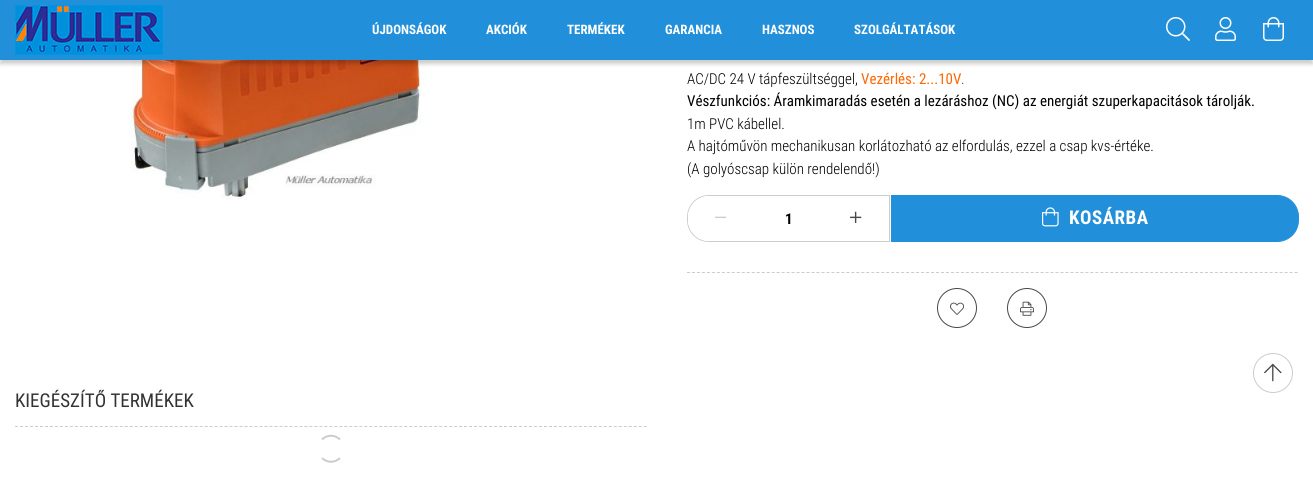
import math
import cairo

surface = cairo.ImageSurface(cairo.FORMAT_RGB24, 1313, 493)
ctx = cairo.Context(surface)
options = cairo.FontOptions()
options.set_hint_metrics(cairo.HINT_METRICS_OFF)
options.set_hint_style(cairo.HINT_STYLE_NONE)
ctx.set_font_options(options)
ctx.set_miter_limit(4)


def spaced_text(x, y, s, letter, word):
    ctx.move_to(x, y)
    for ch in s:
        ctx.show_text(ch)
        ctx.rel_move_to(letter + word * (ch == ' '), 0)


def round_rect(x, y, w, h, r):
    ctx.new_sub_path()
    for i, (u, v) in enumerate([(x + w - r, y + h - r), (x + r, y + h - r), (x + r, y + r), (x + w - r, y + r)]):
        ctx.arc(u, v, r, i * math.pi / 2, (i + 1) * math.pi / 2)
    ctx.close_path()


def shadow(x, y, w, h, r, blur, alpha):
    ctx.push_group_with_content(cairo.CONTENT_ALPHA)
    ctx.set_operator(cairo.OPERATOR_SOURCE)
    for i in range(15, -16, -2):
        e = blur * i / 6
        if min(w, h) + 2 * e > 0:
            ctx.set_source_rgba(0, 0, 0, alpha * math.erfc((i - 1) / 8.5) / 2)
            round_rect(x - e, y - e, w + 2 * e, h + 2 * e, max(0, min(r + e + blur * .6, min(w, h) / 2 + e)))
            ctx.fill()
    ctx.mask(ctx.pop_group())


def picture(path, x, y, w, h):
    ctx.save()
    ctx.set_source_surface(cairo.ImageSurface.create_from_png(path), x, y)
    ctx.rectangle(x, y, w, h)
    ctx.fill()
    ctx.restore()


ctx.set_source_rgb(1, 1, 1)
ctx.paint()
picture("img5.png", 131, 60, 400, 140)
ctx.set_source_rgb(0, 0, 0)
shadow(0, 4, 1313, 60, 0, 2, 0.2)
ctx.set_source_rgb(0.129, 0.561, 0.851)
ctx.rectangle(0, 0, 1313, 60)
ctx.fill()
picture("img1.png", 15, 5, 148, 50)
ctx.select_font_face("Roboto Condensed", cairo.FONT_SLANT_NORMAL, cairo.FONT_WEIGHT_BOLD)
ctx.set_font_size(13)
ctx.set_source_rgb(1, 1, 1)
ctx.move_to(372, 34)
ctx.show_text("ÚJDONSÁGOK")
ctx.move_to(486, 34)
ctx.show_text("AKCIÓK")
ctx.move_to(567, 34)
ctx.show_text("TERMÉKEK")
ctx.move_to(665, 34)
ctx.show_text("GARANCIA")
ctx.move_to(762, 34)
ctx.show_text("HASZNOS")
ctx.move_to(854, 34)
ctx.show_text("SZOLGÁLTATÁSOK")
picture("img2.png", 1166, 17, 24, 24)
picture("img3.png", 1215, 17, 21, 24)
picture("img4.png", 1263, 17, 21, 24)
ctx.select_font_face("Roboto Condensed Light")
ctx.set_font_size(15)
ctx.set_source_rgb(0, 0, 0)
ctx.move_to(687, 84)
ctx.show_text("AC/DC 24 V tápfeszültséggel,")
ctx.select_font_face("Roboto Condensed")
ctx.set_source_rgb(1, 0.4, 0)
ctx.move_to(861, 84)
ctx.show_text("Vezérlés: 2...10V")
ctx.select_font_face("Roboto Condensed Light")
ctx.set_source_rgb(0.282, 0.282, 0.282)
ctx.move_to(961, 84)
ctx.show_text(".")
ctx.select_font_face("Roboto Condensed")
ctx.set_source_rgb(0, 0, 0)
ctx.move_to(687, 106)
ctx.show_text("Vészfunkciós: Áramkimaradás esetén a lezáráshoz (NC) az energiát szuperkapacitások tárolják.")
ctx.select_font_face("Roboto Condensed Light")
ctx.move_to(687, 129)
ctx.show_text("1m PVC kábellel.")
ctx.move_to(687, 151)
ctx.show_text("A hajtóművön mechanikusan korlátozható az elfordulás, ezzel a csap kvs-értéke.")
ctx.move_to(687, 174)
ctx.show_text("(A golyóscsap külön rendelendő!)")
ctx.new_path()
ctx.move_to(709, 195.5)
ctx.line_to(889.5, 195.5)
ctx.line_to(889.5, 241.5)
ctx.line_to(709, 241.5)
ctx.curve_to(697, 241.5, 687.5, 232, 687.5, 220)
ctx.line_to(687.5, 217)
ctx.curve_to(687.5, 205, 697, 195.5, 709, 195.5)
ctx.close_path()
ctx.set_source_rgb(0.8, 0.8, 0.8)
ctx.set_line_width(1)
ctx.stroke()
ctx.set_source_rgb(1, 1, 1)
ctx.new_path()
ctx.move_to(709, 196)
ctx.line_to(755, 196)
ctx.line_to(755, 241)
ctx.line_to(709, 241)
ctx.curve_to(697.5, 241, 688, 231.5, 688, 220)
ctx.line_to(688, 217)
ctx.curve_to(688, 205.5, 697.5, 196, 709, 196)
ctx.close_path()
ctx.fill()
picture("img6.png", 715, 216, 12, 2)
ctx.select_font_face("Roboto Condensed", cairo.FONT_SLANT_NORMAL, cairo.FONT_WEIGHT_BOLD)
ctx.set_source_rgb(0, 0, 0)
ctx.move_to(785, 224)
ctx.show_text("1")
picture("img7.png", 850, 211, 12, 12)
ctx.set_source_rgb(0.129, 0.561, 0.851)
ctx.new_path()
ctx.move_to(891.5, 195.5)
ctx.line_to(1277, 195.5)
ctx.curve_to(1289, 195.5, 1298.5, 205, 1298.5, 217)
ctx.line_to(1298.5, 220)
ctx.curve_to(1298.5, 232, 1289, 241.5, 1277, 241.5)
ctx.line_to(891.5, 241.5)
ctx.close_path()
ctx.fill_preserve()
ctx.stroke()
picture("img8.png", 1042, 207, 17, 20)
ctx.set_font_size(19)
ctx.set_source_rgb(1, 1, 1)
spaced_text(1069, 224, "KOSÁRBA", 0.5, 0)
ctx.new_path()
ctx.move_to(687, 272.5)
ctx.line_to(1298, 272.5)
ctx.set_source_rgb(0.8, 0.8, 0.8)
ctx.set_dash([3, 1.98])
ctx.stroke()
ctx.arc(957, 308, 19.5, 0, 2 * math.pi)
ctx.set_source_rgb(0.282, 0.282, 0.282)
ctx.set_dash([])
ctx.stroke()
picture("img9.png", 950, 302, 14, 13)
ctx.arc(1027, 308, 19.5, 0, 2 * math.pi)
ctx.stroke()
picture("img10.png", 1020, 301, 14, 15)
ctx.new_path()
ctx.move_to(15, 426.5)
ctx.line_to(647, 426.5)
ctx.set_source_rgb(0.8, 0.8, 0.8)
ctx.set_dash([3, 1.99])
ctx.stroke()
ctx.select_font_face("Roboto Condensed")
ctx.set_source_rgb(0.2, 0.2, 0.2)
ctx.move_to(15, 407)
ctx.show_text("KIEGÉSZÍTŐ TERMÉKEK")
ctx.new_path()
ctx.move_to(322, 439.5)
ctx.curve_to(327, 434.5, 335, 434.5, 340, 439.5)
ctx.move_to(340, 458)
ctx.curve_to(335, 463, 327, 463, 322, 458)
ctx.set_source_rgb(0.8, 0.8, 0.8)
ctx.set_line_width(2)
ctx.set_dash([])
ctx.stroke()
ctx.arc(1273, 373, 19.5, 0, 2 * math.pi)
ctx.set_line_width(1)
ctx.stroke()
picture("img11.png", 1264, 363, 18, 19)
surface.write_to_png("page.png")
